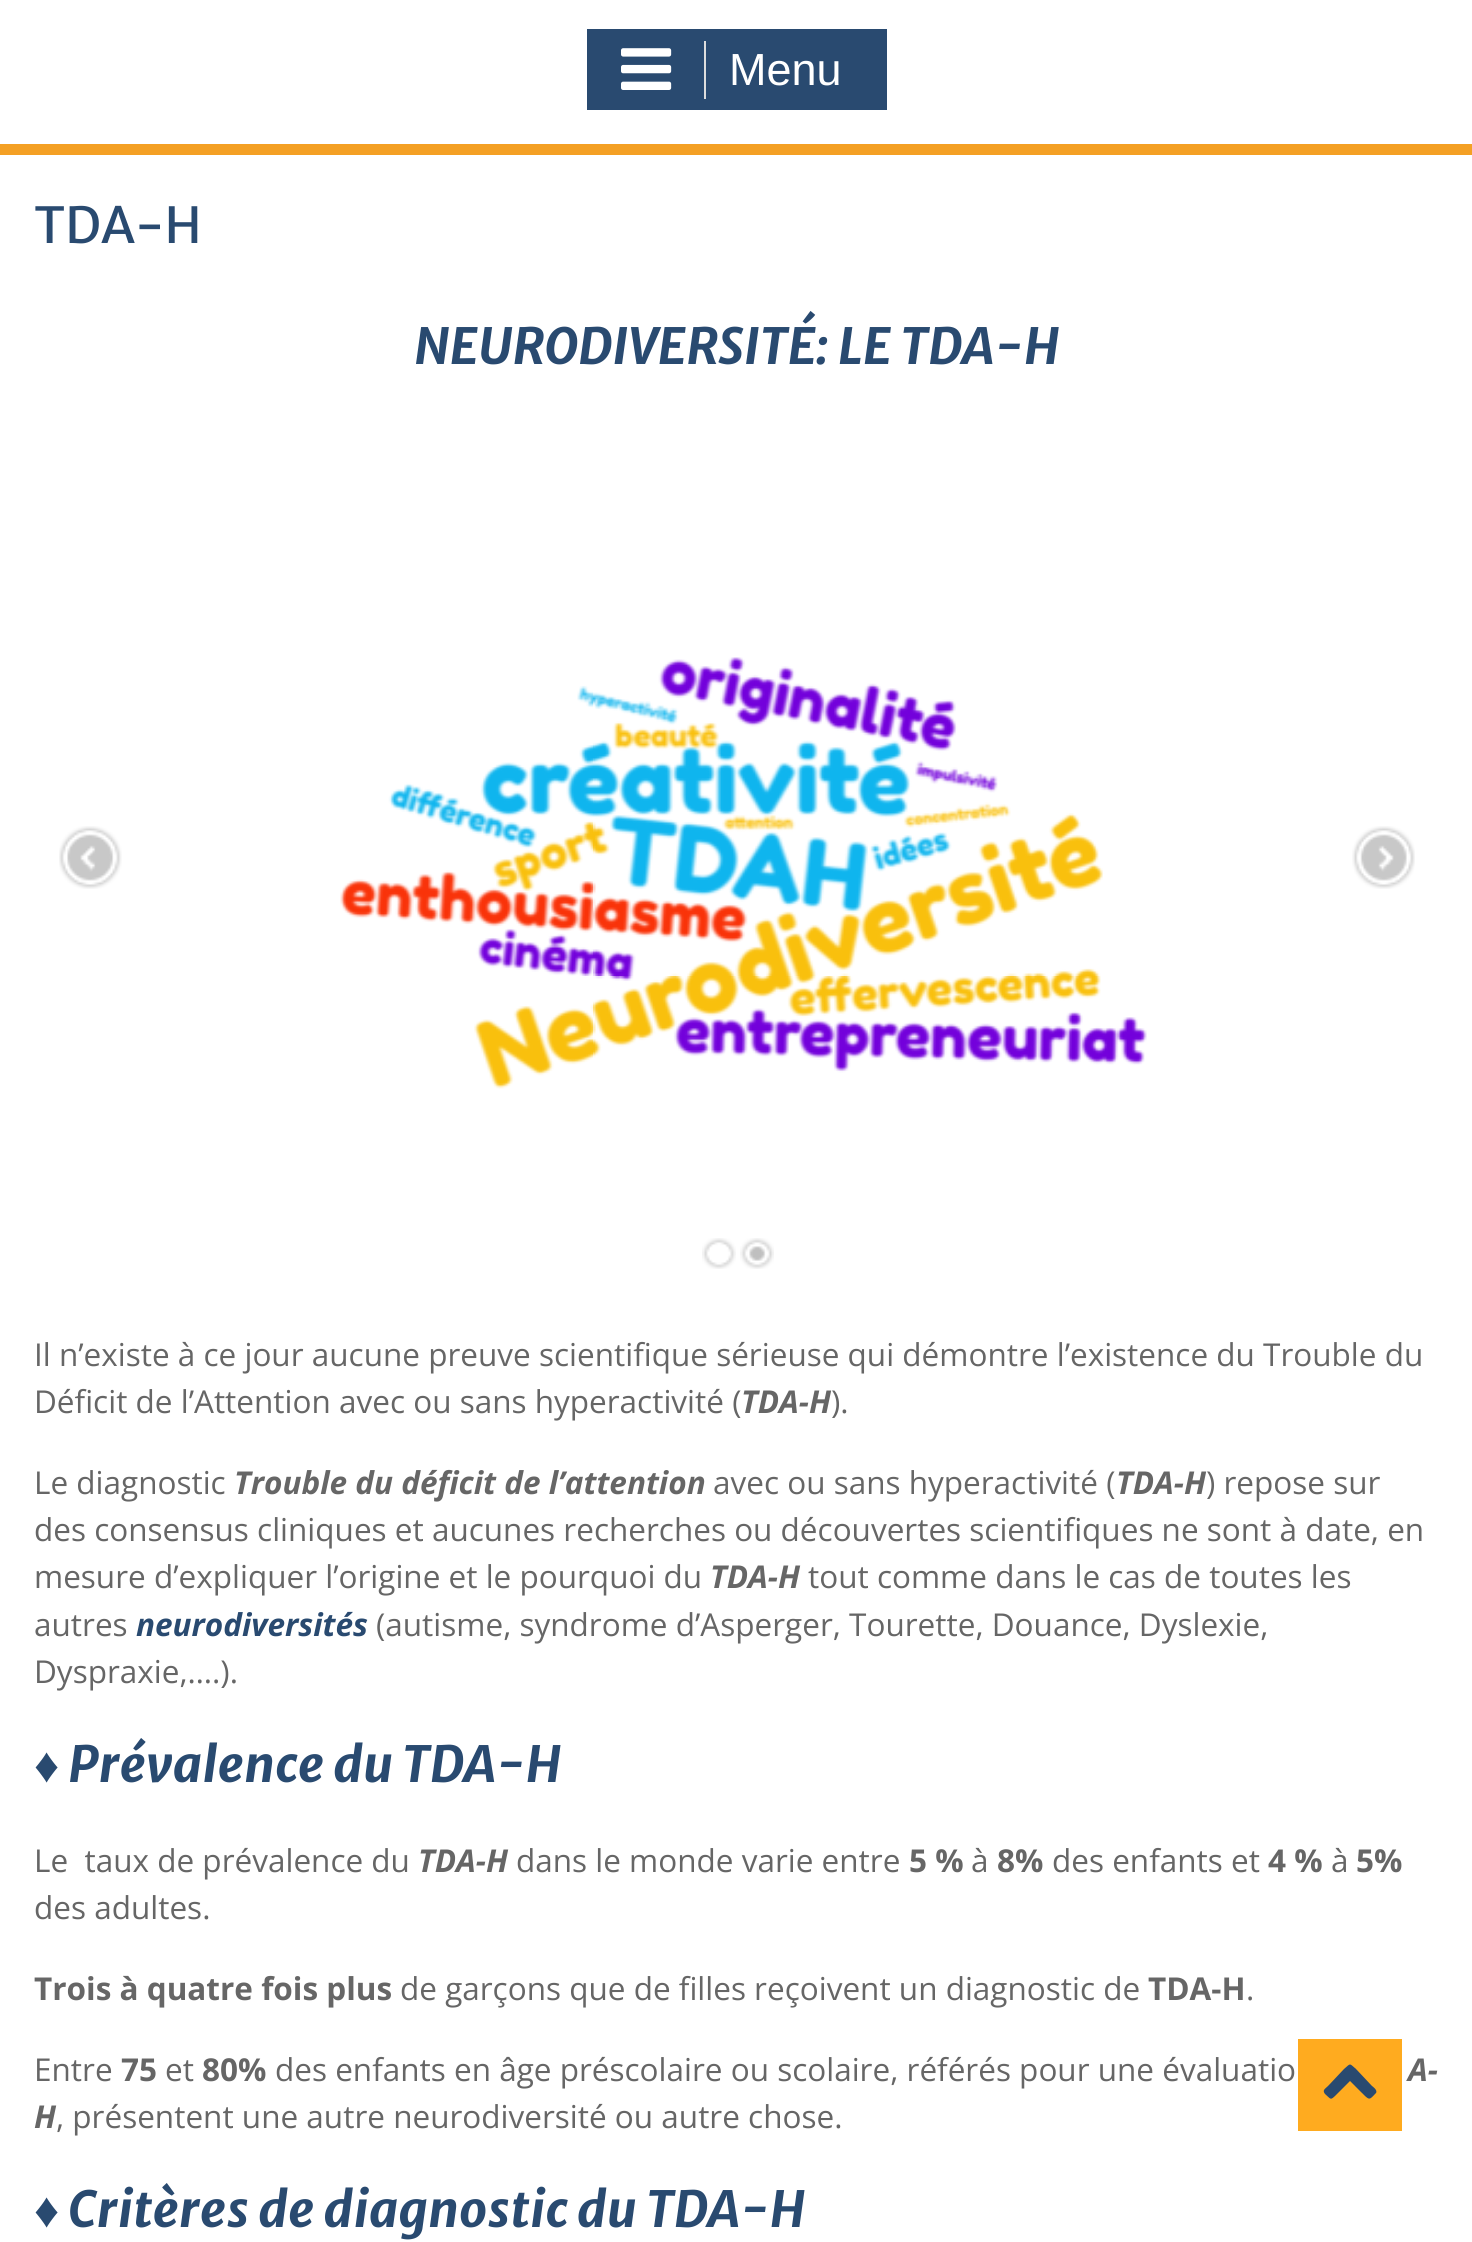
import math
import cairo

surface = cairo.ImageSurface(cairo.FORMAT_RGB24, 1472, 2242)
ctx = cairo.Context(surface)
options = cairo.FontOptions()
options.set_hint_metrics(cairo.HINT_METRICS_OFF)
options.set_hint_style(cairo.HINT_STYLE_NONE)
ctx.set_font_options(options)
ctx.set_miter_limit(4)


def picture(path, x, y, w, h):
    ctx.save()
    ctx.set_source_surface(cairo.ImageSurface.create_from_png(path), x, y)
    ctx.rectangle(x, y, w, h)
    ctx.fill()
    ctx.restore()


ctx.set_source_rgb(1, 1, 1)
ctx.paint()
ctx.set_source_rgb(0.957, 0.627, 0.141)
ctx.rectangle(0, 144, 1472, 11)
ctx.fill()
ctx.set_source_rgb(0.161, 0.29, 0.439)
ctx.rectangle(587, 29, 300, 81)
ctx.fill()
ctx.set_source_rgb(0.867, 0.867, 0.867)
ctx.rectangle(704, 41, 2, 58)
ctx.fill()
picture("img1.png", 621, 48, 51, 42)
ctx.select_font_face("Liberation Sans")
ctx.set_font_size(45)
ctx.set_source_rgb(1, 1, 1)
ctx.move_to(729, 85)
ctx.show_text("Menu")
ctx.select_font_face("Merriweather Sans")
ctx.set_font_size(49.5)
ctx.set_source_rgb(0.161, 0.29, 0.439)
ctx.move_to(34, 243)
ctx.show_text("TDA-H")
ctx.select_font_face("Merriweather Sans", cairo.FONT_SLANT_ITALIC, cairo.FONT_WEIGHT_BOLD)
ctx.move_to(414, 364)
ctx.show_text("NEURODIVERSITÉ: LE TDA-H")
picture("img2.png", 340, 657, 807, 432)
picture("img3.png", 59, 826, 63, 63)
picture("img4.png", 1352, 826, 63, 63)
picture("img5.png", 702, 1238, 34, 31)
picture("img6.png", 740, 1238, 34, 31)
ctx.select_font_face("Open Sans")
ctx.set_font_size(31.5)
ctx.set_source_rgb(0.4, 0.4, 0.4)
ctx.move_to(34, 1366)
ctx.show_text("Il n’existe à ce jour aucune preuve scientifique sérieuse qui démontre l’existence du Trouble du")
ctx.move_to(34, 1413)
ctx.show_text("Déficit de l’Attention avec ou sans hyperactivité (")
ctx.select_font_face("Open Sans", cairo.FONT_SLANT_ITALIC, cairo.FONT_WEIGHT_BOLD)
ctx.move_to(741, 1413)
ctx.show_text("TDA-H")
ctx.select_font_face("Open Sans")
ctx.move_to(831, 1413)
ctx.show_text(").")
ctx.move_to(34, 1494)
ctx.show_text("Le diagnostic")
ctx.select_font_face("Open Sans", cairo.FONT_SLANT_ITALIC, cairo.FONT_WEIGHT_BOLD)
ctx.move_to(234, 1494)
ctx.show_text("Trouble du déficit de l’attention")
ctx.select_font_face("Open Sans")
ctx.move_to(713, 1494)
ctx.show_text("avec ou sans hyperactivité (")
ctx.select_font_face("Open Sans", cairo.FONT_SLANT_ITALIC, cairo.FONT_WEIGHT_BOLD)
ctx.move_to(1116, 1494)
ctx.show_text("TDA-H")
ctx.select_font_face("Open Sans")
ctx.move_to(1206, 1494)
ctx.show_text(") repose sur")
ctx.move_to(34, 1541)
ctx.show_text("des consensus cliniques et aucunes recherches ou découvertes scientifiques ne sont à date, en")
ctx.move_to(34, 1588)
ctx.show_text("mesure d’expliquer l’origine et le pourquoi du")
ctx.select_font_face("Open Sans", cairo.FONT_SLANT_ITALIC, cairo.FONT_WEIGHT_BOLD)
ctx.move_to(710, 1588)
ctx.show_text("TDA-H")
ctx.select_font_face("Open Sans")
ctx.move_to(808, 1588)
ctx.show_text("tout comme dans le cas de toutes les")
ctx.move_to(34, 1636)
ctx.show_text("autres")
ctx.select_font_face("Open Sans", cairo.FONT_SLANT_ITALIC, cairo.FONT_WEIGHT_BOLD)
ctx.set_source_rgb(0.161, 0.29, 0.439)
ctx.move_to(136, 1636)
ctx.show_text("neurodiversités")
ctx.select_font_face("Open Sans")
ctx.set_source_rgb(0.4, 0.4, 0.4)
ctx.move_to(376, 1636)
ctx.show_text("(autisme, syndrome d’Asperger, Tourette, Douance, Dyslexie,")
ctx.move_to(34, 1683)
ctx.show_text("Dyspraxie,….).")
ctx.select_font_face("Liberation Sans", cairo.FONT_SLANT_ITALIC, cairo.FONT_WEIGHT_BOLD)
ctx.set_font_size(49.5)
ctx.set_source_rgb(0.161, 0.29, 0.439)
ctx.move_to(34, 1782)
ctx.show_text("♦")
ctx.select_font_face("Merriweather Sans", cairo.FONT_SLANT_ITALIC, cairo.FONT_WEIGHT_BOLD)
ctx.move_to(68, 1782)
ctx.show_text("Prévalence du TDA-H")
ctx.select_font_face("Open Sans")
ctx.set_font_size(31.5)
ctx.set_source_rgb(0.4, 0.4, 0.4)
ctx.move_to(34, 1872)
ctx.show_text("Le  taux de prévalence du")
ctx.select_font_face("Open Sans", cairo.FONT_SLANT_ITALIC, cairo.FONT_WEIGHT_BOLD)
ctx.move_to(418, 1872)
ctx.show_text("TDA-H")
ctx.select_font_face("Open Sans")
ctx.move_to(516, 1872)
ctx.show_text("dans le monde varie entre")
ctx.select_font_face("Open Sans", cairo.FONT_SLANT_NORMAL, cairo.FONT_WEIGHT_BOLD)
ctx.move_to(909, 1872)
ctx.show_text("5 %")
ctx.select_font_face("Open Sans")
ctx.move_to(971, 1872)
ctx.show_text("à")
ctx.select_font_face("Open Sans", cairo.FONT_SLANT_NORMAL, cairo.FONT_WEIGHT_BOLD)
ctx.move_to(997, 1872)
ctx.show_text("8%")
ctx.select_font_face("Open Sans")
ctx.move_to(1052, 1872)
ctx.show_text("des enfants et")
ctx.select_font_face("Open Sans", cairo.FONT_SLANT_NORMAL, cairo.FONT_WEIGHT_BOLD)
ctx.move_to(1268, 1872)
ctx.show_text("4 %")
ctx.select_font_face("Open Sans")
ctx.move_to(1331, 1872)
ctx.show_text("à")
ctx.select_font_face("Open Sans", cairo.FONT_SLANT_NORMAL, cairo.FONT_WEIGHT_BOLD)
ctx.move_to(1356, 1872)
ctx.show_text("5%")
ctx.select_font_face("Open Sans")
ctx.move_to(34, 1919)
ctx.show_text("des adultes.")
ctx.select_font_face("Open Sans", cairo.FONT_SLANT_NORMAL, cairo.FONT_WEIGHT_BOLD)
ctx.move_to(34, 2000)
ctx.show_text("Trois à quatre fois plus")
ctx.select_font_face("Open Sans")
ctx.move_to(400, 2000)
ctx.show_text("de garçons que de filles reçoivent un diagnostic de")
ctx.select_font_face("Open Sans", cairo.FONT_SLANT_NORMAL, cairo.FONT_WEIGHT_BOLD)
ctx.move_to(1148, 2000)
ctx.show_text("TDA-H")
ctx.select_font_face("Open Sans")
ctx.move_to(1246, 2000)
ctx.show_text(".")
ctx.move_to(34, 2081)
ctx.show_text("Entre")
ctx.select_font_face("Open Sans", cairo.FONT_SLANT_NORMAL, cairo.FONT_WEIGHT_BOLD)
ctx.move_to(121, 2081)
ctx.show_text("75")
ctx.select_font_face("Open Sans")
ctx.move_to(165, 2081)
ctx.show_text("et")
ctx.select_font_face("Open Sans", cairo.FONT_SLANT_NORMAL, cairo.FONT_WEIGHT_BOLD)
ctx.move_to(202, 2081)
ctx.show_text("80%")
ctx.select_font_face("Open Sans")
ctx.move_to(275, 2081)
ctx.show_text("des enfants en âge préscolaire ou scolaire, référés pour une évaluatio")
ctx.select_font_face("Open Sans", cairo.FONT_SLANT_ITALIC, cairo.FONT_WEIGHT_BOLD)
ctx.move_to(1408, 2081)
ctx.show_text("A-")
ctx.move_to(34, 2128)
ctx.show_text("H")
ctx.select_font_face("Open Sans")
ctx.move_to(56, 2128)
ctx.show_text(", présentent une autre neurodiversité ou autre chose.")
ctx.select_font_face("Liberation Sans", cairo.FONT_SLANT_ITALIC, cairo.FONT_WEIGHT_BOLD)
ctx.set_font_size(49.5)
ctx.set_source_rgb(0.161, 0.29, 0.439)
ctx.move_to(34, 2227)
ctx.show_text("♦")
ctx.select_font_face("Merriweather Sans", cairo.FONT_SLANT_ITALIC, cairo.FONT_WEIGHT_BOLD)
ctx.move_to(68, 2227)
ctx.show_text("Critères de diagnostic du TDA-H")
ctx.set_source_rgb(1, 0.671, 0.122)
ctx.rectangle(1298, 2039, 104, 92)
ctx.fill()
ctx.set_source_rgb(0.161, 0.29, 0.439)
ctx.new_path()
ctx.move_to(1376, 2093)
ctx.curve_to(1370, 2099, 1370, 2101, 1364, 2095)
ctx.line_to(1350, 2081)
ctx.line_to(1336, 2095)
ctx.curve_to(1330, 2101, 1331, 2099, 1325, 2094)
ctx.curve_to(1322, 2090, 1325, 2089, 1328, 2086)
ctx.line_to(1344, 2069)
ctx.curve_to(1351, 2063, 1349, 2063, 1356, 2069)
ctx.line_to(1372, 2086)
ctx.curve_to(1372, 2086, 1378, 2090, 1376, 2093)
ctx.close_path()
ctx.fill()
surface.write_to_png("page.png")
